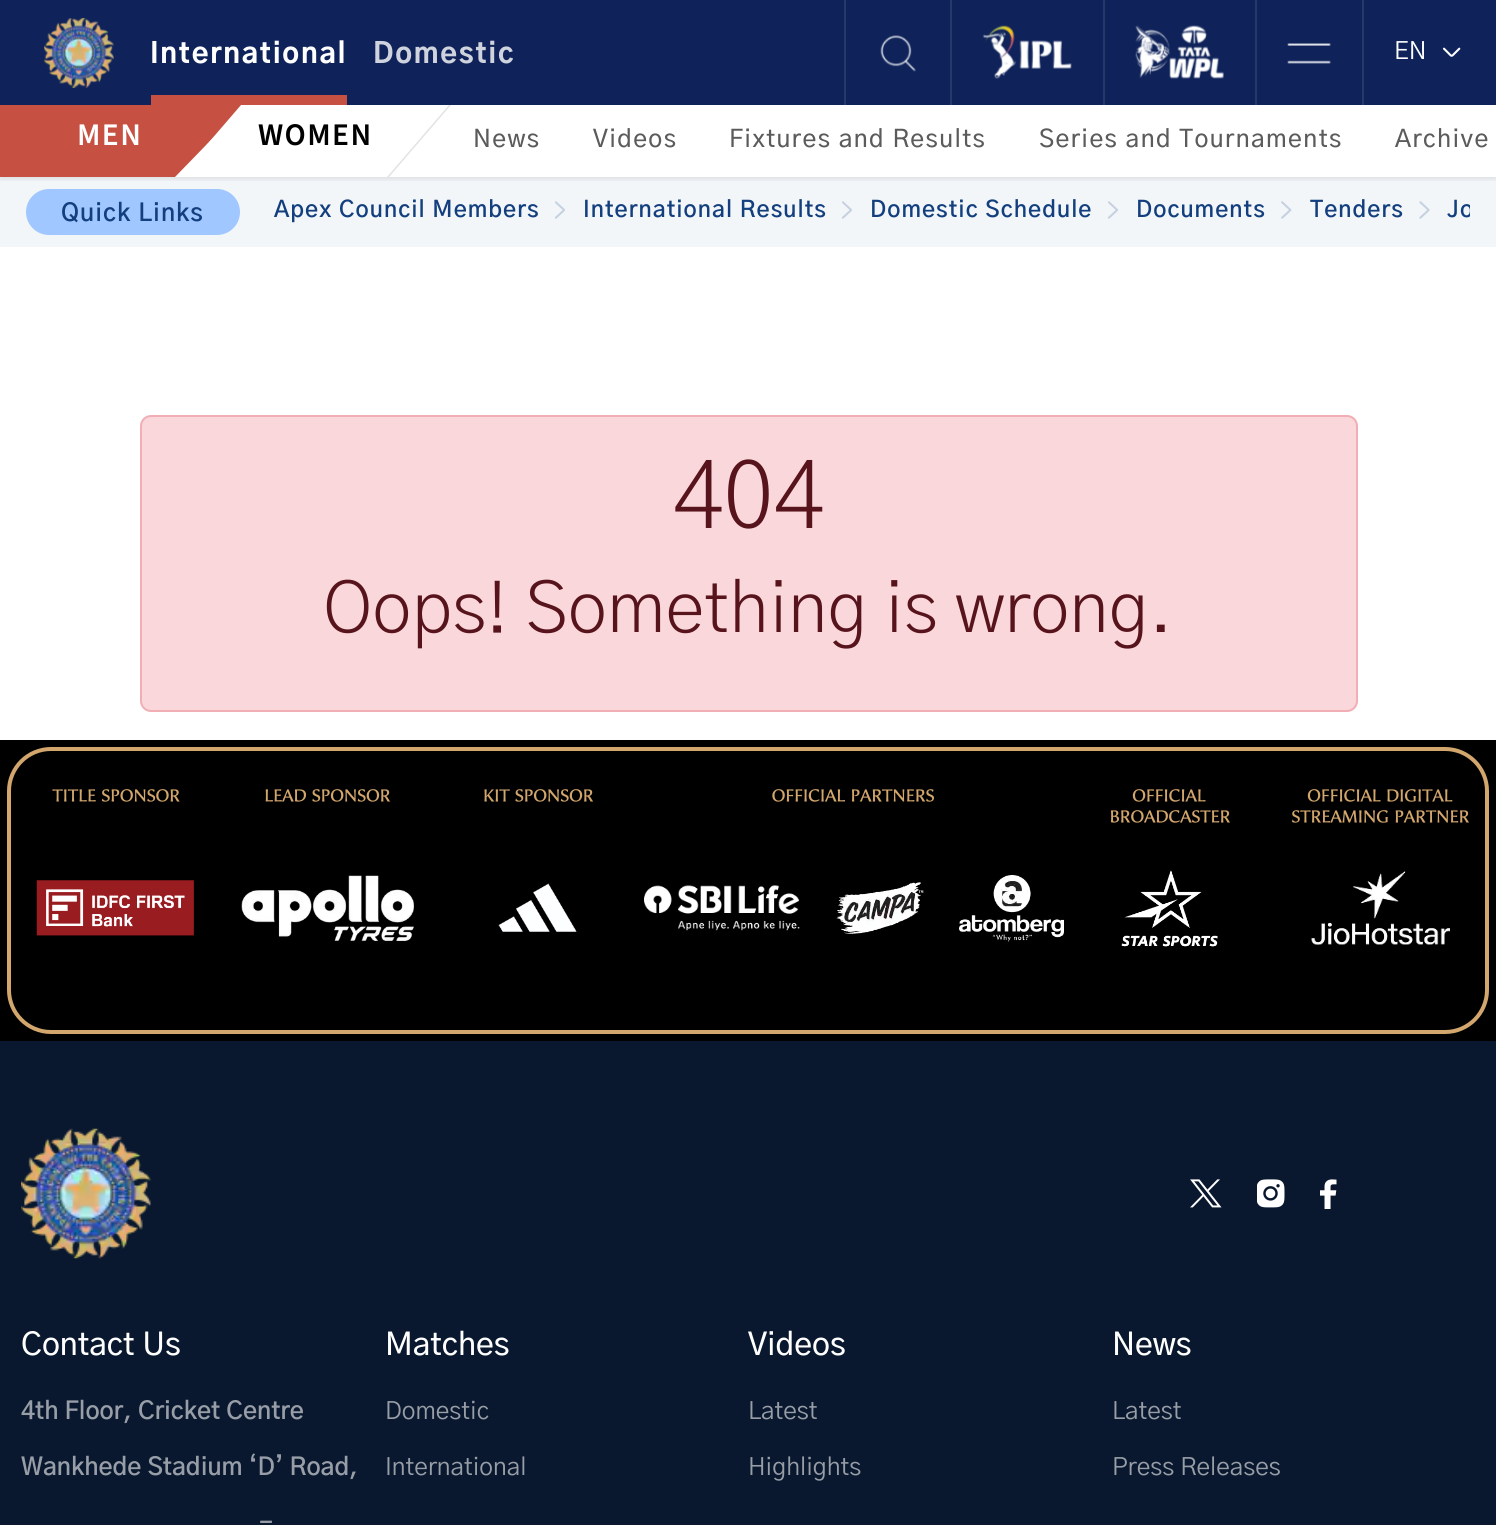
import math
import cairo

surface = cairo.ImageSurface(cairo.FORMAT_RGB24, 1496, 1525)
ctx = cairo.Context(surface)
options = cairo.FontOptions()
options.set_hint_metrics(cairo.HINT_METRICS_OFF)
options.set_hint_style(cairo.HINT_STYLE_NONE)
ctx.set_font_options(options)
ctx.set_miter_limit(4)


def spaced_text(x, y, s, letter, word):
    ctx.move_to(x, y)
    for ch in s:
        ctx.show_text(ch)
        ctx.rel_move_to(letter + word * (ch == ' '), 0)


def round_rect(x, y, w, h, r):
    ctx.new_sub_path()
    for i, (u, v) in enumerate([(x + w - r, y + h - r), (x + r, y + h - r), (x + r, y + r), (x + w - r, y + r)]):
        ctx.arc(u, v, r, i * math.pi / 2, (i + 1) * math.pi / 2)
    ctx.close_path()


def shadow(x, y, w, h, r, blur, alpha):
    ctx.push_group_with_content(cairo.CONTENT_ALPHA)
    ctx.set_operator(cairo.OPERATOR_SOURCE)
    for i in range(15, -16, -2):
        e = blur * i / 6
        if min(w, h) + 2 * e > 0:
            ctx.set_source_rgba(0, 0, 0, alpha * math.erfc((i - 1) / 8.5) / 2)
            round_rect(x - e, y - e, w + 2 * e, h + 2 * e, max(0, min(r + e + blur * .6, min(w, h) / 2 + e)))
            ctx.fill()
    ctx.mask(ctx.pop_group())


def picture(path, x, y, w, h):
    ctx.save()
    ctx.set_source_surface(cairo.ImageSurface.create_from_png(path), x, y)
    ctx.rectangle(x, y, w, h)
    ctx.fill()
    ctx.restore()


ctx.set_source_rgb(1, 1, 1)
ctx.paint()
ctx.set_source_rgb(0.059, 0.137, 0.353)
ctx.rectangle(0, 0, 1496, 105)
ctx.fill()
ctx.set_source_rgb(0.953, 0.961, 0.976)
ctx.rectangle(0, 177, 1496, 70)
ctx.fill()
ctx.save()
ctx.rectangle(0, 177, 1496, 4)
ctx.clip()
ctx.set_source_rgb(0, 0, 0)
shadow(0, 109, 1496, 71, 0, 2, 0.08)
ctx.restore()
ctx.set_source_rgb(0.776, 0.318, 0.259)
ctx.rectangle(151, 95, 196, 10)
ctx.fill()
ctx.select_font_face("Gothic A1 ExtraBold")
ctx.set_font_size(28)
ctx.set_source_rgb(1, 1, 1)
spaced_text(150, 63, "International", 1.75, 0)
ctx.set_source_rgb(0.812, 0.827, 0.871)
spaced_text(373, 63, "Domestic", 1.75, 0)
ctx.set_source_rgb(0.776, 0.318, 0.259)
ctx.new_path()
ctx.move_to(0, 105)
ctx.line_to(245, 105)
ctx.line_to(175, 177)
ctx.line_to(0, 177)
ctx.close_path()
ctx.fill()
ctx.select_font_face("Source Sans 3 SemiBold")
ctx.set_font_size(31.5)
ctx.set_source_rgb(1, 1, 1)
spaced_text(77, 145, "MEN", 1.4, 0)
ctx.rectangle(446, 176, 1050, 1)
ctx.fill()
ctx.new_path()
ctx.move_to(241, 105)
ctx.line_to(451, 105)
ctx.line_to(389, 177)
ctx.line_to(179, 177)
ctx.close_path()
ctx.fill()
ctx.set_source_rgb(0.886, 0.89, 0.902)
ctx.new_path()
ctx.move_to(449, 105)
ctx.line_to(451, 105)
ctx.line_to(389, 177)
ctx.line_to(387, 177)
ctx.close_path()
ctx.fill()
ctx.set_source_rgb(0, 0, 0)
spaced_text(258, 145, "WOMEN", 1.4, 0)
ctx.select_font_face("Gothic A1 Medium")
ctx.set_font_size(24.5)
ctx.set_source_rgb(0.357, 0.357, 0.357)
spaced_text(473, 147, "News", 1.4, 0)
spaced_text(593, 147, "Videos", 1.4, 0)
spaced_text(729, 147, "Fixtures and Results", 1.4, 0)
spaced_text(1039, 147, "Series and Tournaments", 1.4, 0)
spaced_text(1395, 147, "Archive", 1.4, 0)
picture("img1.png", 44, 18, 70, 70)
ctx.set_source_rgb(0.153, 0.224, 0.416)
ctx.rectangle(844, 0, 2, 105)
ctx.fill()
picture("img2.png", 880, 35, 36, 37)
ctx.rectangle(950, 0, 2, 105)
ctx.fill()
picture("img3.png", 982, 25, 90, 54)
ctx.rectangle(1103, 0, 2, 105)
ctx.fill()
picture("img4.png", 1135, 25, 89, 54)
ctx.rectangle(1255, 0, 2, 105)
ctx.fill()
picture("img5.png", 1287, 43, 44, 21)
ctx.rectangle(1362, 0, 2, 105)
ctx.fill()
ctx.select_font_face("Gothic A1")
ctx.set_source_rgb(1, 1, 1)
ctx.move_to(1394, 59)
ctx.show_text("EN")
picture("img6.png", 1443, 47, 18, 10)
ctx.set_source_rgb(0.627, 0.78, 1)
round_rect(26, 189, 214, 46, 23)
ctx.fill()
ctx.select_font_face("Gothic A1 SemiBold")
ctx.set_source_rgb(0.075, 0.247, 0.494)
spaced_text(61, 221, "Quick Links", 1.05, 0)
ctx.set_font_size(22.75)
spaced_text(274, 217, "Apex Council Members", 1.05, 0)
picture("img7.png", 555, 201, 10, 18)
spaced_text(583, 217, "International Results", 1.05, 0)
picture("img7.png", 842, 201, 10, 18)
spaced_text(870, 217, "Domestic Schedule", 1.05, 0)
picture("img7.png", 1108, 201, 10, 18)
spaced_text(1136, 217, "Documents", 1.05, 0)
picture("img8.png", 1281, 201, 11, 18)
spaced_text(1310, 217, "Tenders", 1.05, 0)
picture("img9.png", 1419, 201, 11, 18)
ctx.save()
ctx.rectangle(275, 186, 1195, 52)
ctx.clip()
spaced_text(1447, 217, "Jo", 1.05, 0)
ctx.restore()
ctx.set_source_rgb(0.973, 0.843, 0.855)
round_rect(141, 416, 1216, 295, 10)
ctx.fill_preserve()
ctx.set_source_rgb(0.945, 0.682, 0.71)
ctx.stroke()
ctx.select_font_face("Gothic A1 Light")
ctx.set_font_size(92)
ctx.set_source_rgb(0.345, 0.082, 0.11)
ctx.move_to(673, 527)
ctx.show_text("404")
ctx.set_font_size(71.25)
ctx.move_to(323, 632)
ctx.show_text("Oops! Something is wrong.")
ctx.set_source_rgb(0.039, 0.094, 0.18)
ctx.rectangle(0, 1041, 1496, 484)
ctx.fill()
ctx.set_source_rgb(0, 0, 0)
ctx.rectangle(0, 740, 1496, 301)
ctx.fill()
round_rect(9, 749, 1478, 283, 42)
ctx.set_source_rgb(0.824, 0.651, 0.424)
ctx.set_line_width(4)
ctx.stroke()
picture("img10.png", 52, 789, 128, 13)
picture("img11.png", 36, 880, 158, 56)
picture("img12.png", 265, 789, 125, 13)
picture("img13.png", 241, 875, 173, 66)
picture("img14.png", 484, 789, 109, 13)
picture("img15.png", 498, 883, 79, 49)
picture("img16.png", 772, 789, 162, 13)
picture("img17.png", 644, 885, 156, 46)
picture("img18.png", 836, 882, 88, 52)
picture("img19.png", 959, 875, 105, 67)
picture("img20.png", 1132, 789, 74, 13)
picture("img21.png", 1110, 810, 120, 13)
picture("img22.png", 1121, 870, 97, 77)
picture("img23.png", 1307, 789, 146, 13)
picture("img24.png", 1292, 810, 177, 13)
picture("img25.png", 1311, 871, 139, 74)
picture("img26.png", 21, 1128, 130, 131)
picture("img27.png", 1190, 1179, 32, 29)
picture("img28.png", 1257, 1179, 28, 29)
picture("img29.png", 1320, 1179, 17, 30)
ctx.select_font_face("Gothic A1 Medium")
ctx.set_font_size(31.5)
ctx.set_source_rgb(1, 1, 1)
ctx.move_to(21, 1355)
ctx.show_text("Contact Us")
ctx.select_font_face("Gothic A1 SemiBold")
ctx.set_font_size(24.5)
ctx.set_source_rgb(0.596, 0.62, 0.655)
ctx.move_to(21, 1419)
ctx.show_text("4th Floor, Cricket Centre")
ctx.move_to(21, 1475)
ctx.show_text("Wankhede Stadium ‘D’ Road,")
ctx.move_to(259, 1531)
ctx.show_text("-")
ctx.select_font_face("Gothic A1 Medium")
ctx.set_font_size(31.5)
ctx.set_source_rgb(1, 1, 1)
ctx.move_to(385, 1355)
ctx.show_text("Matches")
ctx.select_font_face("Gothic A1")
ctx.set_font_size(24.5)
ctx.set_source_rgb(0.596, 0.62, 0.655)
ctx.move_to(385, 1419)
ctx.show_text("Domestic")
ctx.move_to(385, 1475)
ctx.show_text("International")
ctx.select_font_face("Gothic A1 Medium")
ctx.set_font_size(31.5)
ctx.set_source_rgb(1, 1, 1)
ctx.move_to(748, 1355)
ctx.show_text("Videos")
ctx.select_font_face("Gothic A1")
ctx.set_font_size(24.5)
ctx.set_source_rgb(0.596, 0.62, 0.655)
ctx.move_to(748, 1419)
ctx.show_text("Latest")
ctx.move_to(748, 1475)
ctx.show_text("Highlights")
ctx.select_font_face("Gothic A1 Medium")
ctx.set_font_size(31.5)
ctx.set_source_rgb(1, 1, 1)
ctx.move_to(1112, 1355)
ctx.show_text("News")
ctx.select_font_face("Gothic A1")
ctx.set_font_size(24.5)
ctx.set_source_rgb(0.596, 0.62, 0.655)
ctx.move_to(1112, 1419)
ctx.show_text("Latest")
ctx.move_to(1112, 1475)
ctx.show_text("Press Releases")
surface.write_to_png("page.png")
